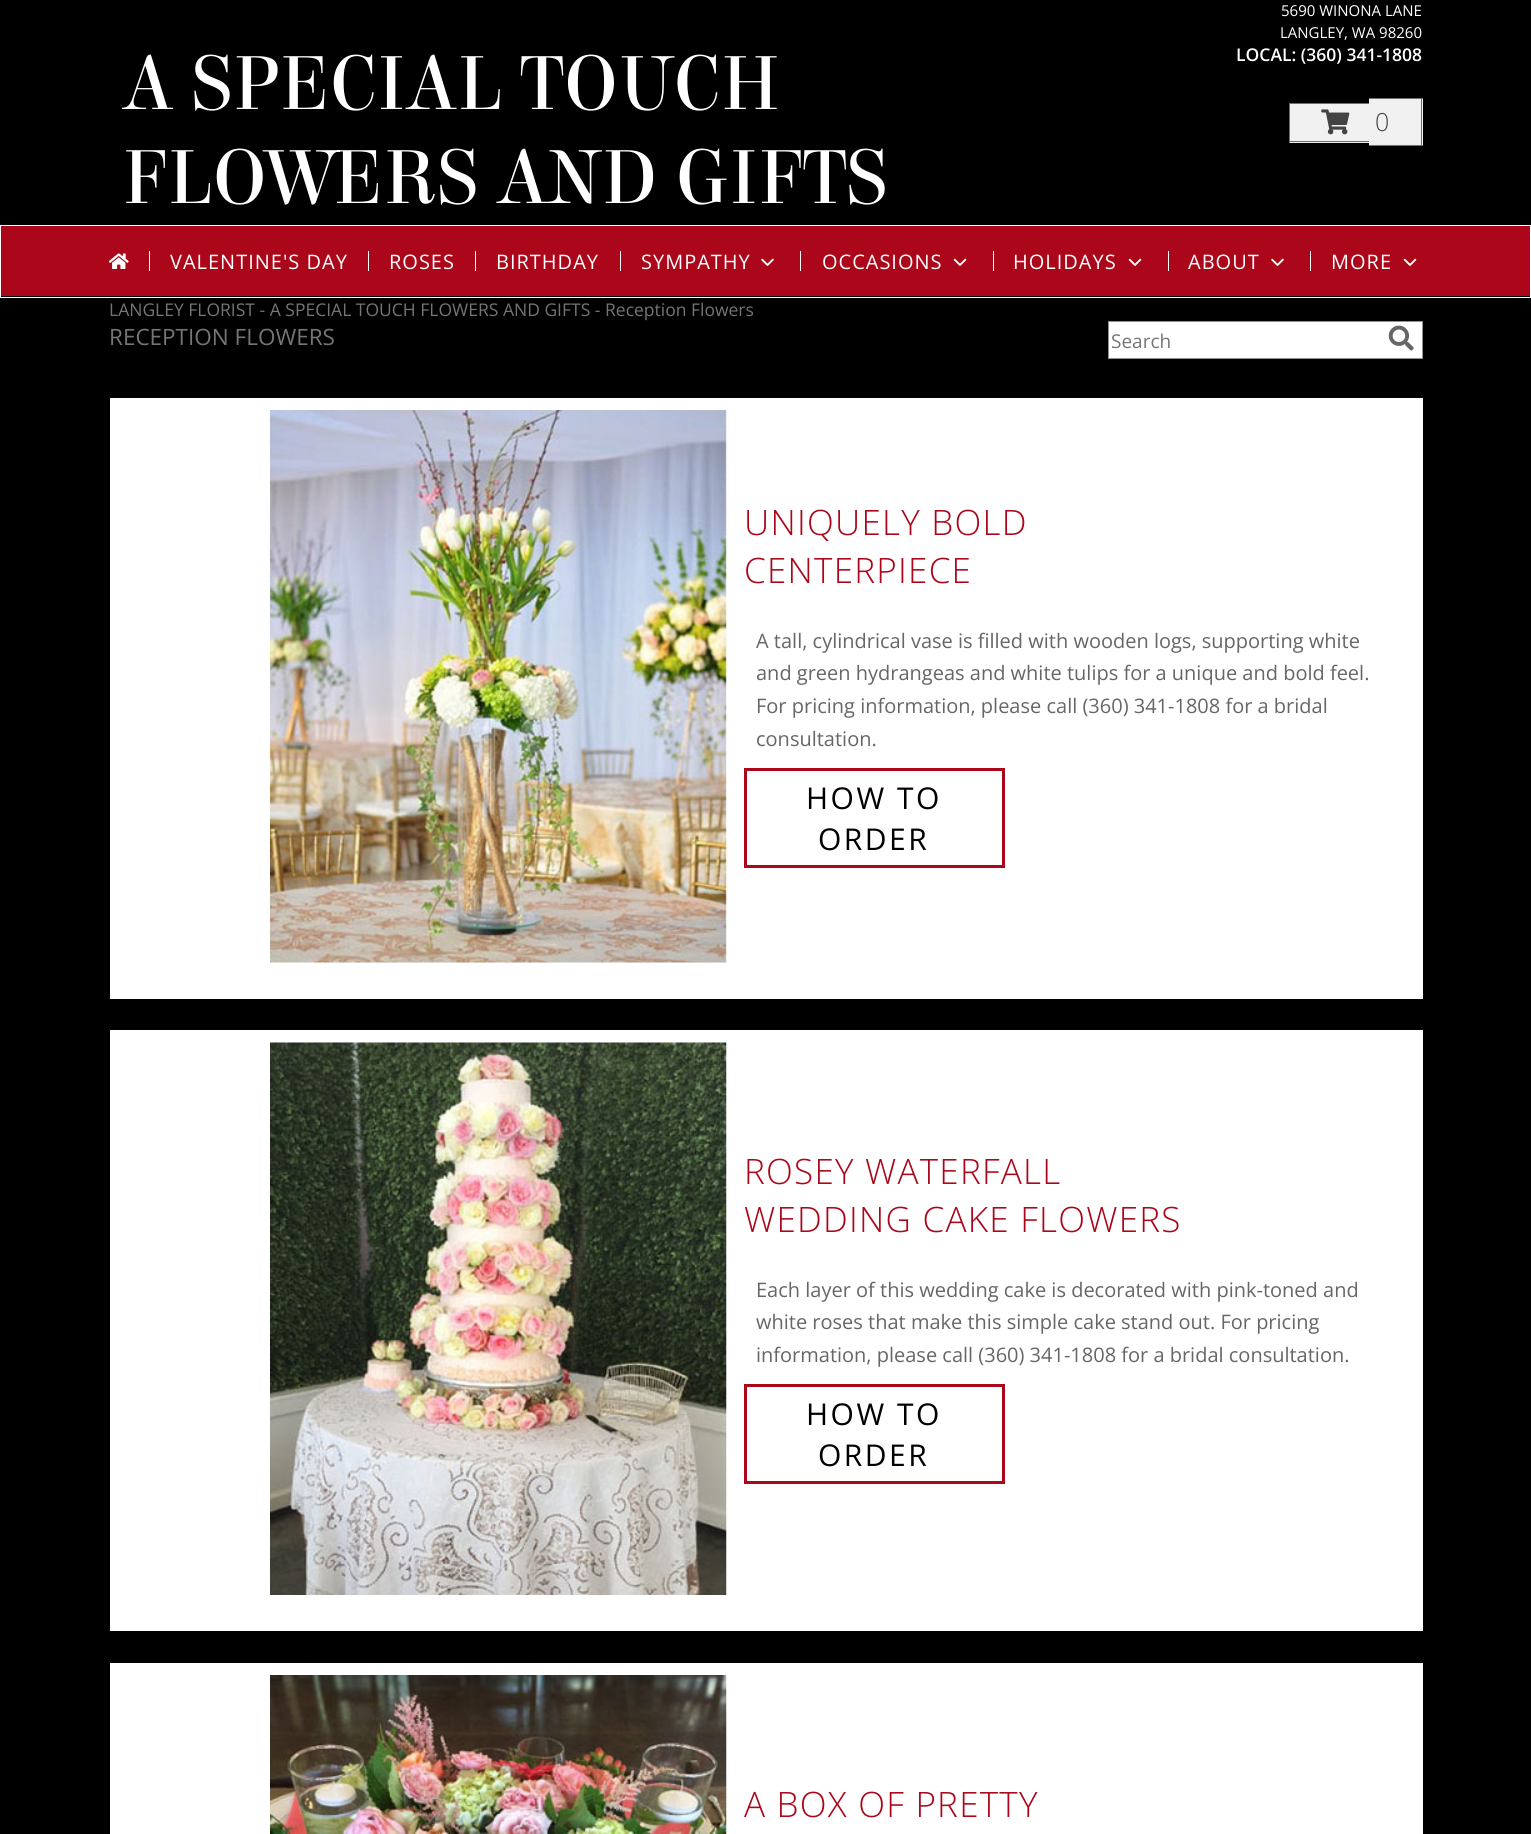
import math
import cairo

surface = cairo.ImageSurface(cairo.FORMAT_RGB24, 1531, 1834)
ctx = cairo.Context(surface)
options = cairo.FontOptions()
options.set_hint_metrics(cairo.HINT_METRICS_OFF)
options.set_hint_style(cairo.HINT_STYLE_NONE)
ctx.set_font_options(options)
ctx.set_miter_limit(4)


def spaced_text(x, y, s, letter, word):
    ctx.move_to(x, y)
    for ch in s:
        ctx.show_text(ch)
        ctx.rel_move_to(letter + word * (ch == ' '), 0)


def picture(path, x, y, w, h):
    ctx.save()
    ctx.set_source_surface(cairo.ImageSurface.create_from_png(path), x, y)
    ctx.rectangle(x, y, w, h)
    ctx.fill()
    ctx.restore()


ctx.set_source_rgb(0, 0, 0)
ctx.paint()
ctx.select_font_face("Elsie")
ctx.set_font_size(81.25)
ctx.set_source_rgb(1, 1, 1)
ctx.move_to(122, 109)
ctx.show_text("A SPECIAL TOUCH")
ctx.move_to(122, 203)
ctx.show_text("FLOWERS AND GIFTS")
ctx.select_font_face("Open Sans")
ctx.set_font_size(15)
ctx.move_to(1281, 16)
ctx.show_text("5690 WINONA LANE")
ctx.move_to(1280, 38)
ctx.show_text("LANGLEY, WA 98260")
ctx.select_font_face("Open Sans SemiBold")
ctx.set_font_size(17.5)
ctx.move_to(1236, 61)
ctx.show_text("LOCAL: (360) 341-1808")
ctx.set_source_rgb(0.945, 0.945, 0.945)
ctx.rectangle(1290, 104, 79, 39)
ctx.fill()
ctx.set_source_rgb(0.431, 0.431, 0.431)
ctx.rectangle(1289, 103, 80, 1)
ctx.fill()
ctx.rectangle(1289, 141, 80, 1)
ctx.fill()
ctx.rectangle(1289, 103, 1, 40)
ctx.fill()
ctx.set_source_rgb(0.945, 0.945, 0.945)
ctx.rectangle(1369, 98, 6, 48)
ctx.fill()
ctx.set_source_rgb(0.431, 0.431, 0.431)
ctx.rectangle(1369, 98, 54, 1)
ctx.fill()
ctx.rectangle(1369, 145, 6, 1)
ctx.fill()
ctx.set_source_rgb(0.945, 0.945, 0.945)
ctx.rectangle(1375, 99, 48, 46)
ctx.fill()
ctx.set_source_rgb(0.431, 0.431, 0.431)
ctx.rectangle(1421, 98, 1, 48)
ctx.fill()
ctx.rectangle(1375, 145, 48, 1)
ctx.fill()
picture("img1.png", 1321, 109, 29, 26)
ctx.select_font_face("Open Sans Light")
ctx.set_font_size(25)
ctx.set_source_rgb(0.267, 0.267, 0.267)
ctx.move_to(1375, 131)
ctx.show_text("0")
ctx.rectangle(0.5, 225.5, 1530, 72)
ctx.set_source_rgb(1, 1, 1)
ctx.set_line_width(1)
ctx.stroke()
ctx.set_source_rgb(0.671, 0.027, 0.102)
ctx.rectangle(1, 226, 1529, 70)
ctx.fill()
picture("img2.png", 109, 253, 20, 16)
ctx.set_source_rgb(1, 1, 1)
ctx.rectangle(149, 251, 1, 20)
ctx.fill()
ctx.select_font_face("Open Sans")
ctx.set_font_size(20)
spaced_text(170, 269, "VALENTINE'S DAY", 1, 0)
ctx.rectangle(368, 251, 1, 20)
ctx.fill()
spaced_text(389, 269, "ROSES", 1, 0)
ctx.rectangle(475, 251, 1, 20)
ctx.fill()
spaced_text(496, 269, "BIRTHDAY", 1, 0)
ctx.rectangle(620, 251, 1, 20)
ctx.fill()
spaced_text(641, 269, "SYMPATHY", 1, 0)
picture("img3.png", 761, 258, 13, 8)
ctx.rectangle(800, 251, 1, 20)
ctx.fill()
spaced_text(822, 269, "OCCASIONS", 1, 0)
picture("img4.png", 953, 258, 14, 8)
ctx.rectangle(993, 251, 1, 20)
ctx.fill()
spaced_text(1013, 269, "HOLIDAYS", 1, 0)
picture("img4.png", 1128, 258, 14, 8)
ctx.rectangle(1168, 251, 1, 20)
ctx.fill()
spaced_text(1188, 269, "ABOUT", 1, 0)
picture("img3.png", 1271, 258, 13, 8)
ctx.rectangle(1310, 251, 1, 20)
ctx.fill()
spaced_text(1331, 269, "MORE", 1, 0)
picture("img4.png", 1403, 258, 14, 8)
ctx.set_font_size(17.5)
ctx.set_source_rgb(0.459, 0.459, 0.459)
ctx.move_to(109, 316)
ctx.show_text("LANGLEY FLORIST - A SPECIAL TOUCH FLOWERS AND GIFTS - Reception Flowers")
ctx.set_font_size(22.5)
ctx.move_to(109, 345)
ctx.show_text("RECEPTION FLOWERS")
ctx.set_source_rgb(1, 1, 1)
ctx.rectangle(1108.5, 321.5, 314, 37)
ctx.fill_preserve()
ctx.set_source_rgb(0.569, 0.569, 0.569)
ctx.stroke()
ctx.set_font_size(19)
ctx.set_source_rgb(0.459, 0.459, 0.459)
ctx.move_to(1111, 348)
ctx.show_text("Search")
picture("img5.png", 1388, 325, 26, 26)
ctx.set_source_rgb(1, 1, 1)
ctx.rectangle(110, 398, 1313, 601)
ctx.fill()
picture("img6.png", 270, 410, 457, 553)
ctx.select_font_face("Open Sans Light")
ctx.set_font_size(35)
ctx.set_source_rgb(0.671, 0.027, 0.102)
spaced_text(744, 535, "UNIQUELY BOLD", 1.25, 0)
spaced_text(744, 583, "CENTERPIECE", 1.25, 0)
ctx.select_font_face("Open Sans")
ctx.set_font_size(20)
ctx.set_source_rgb(0.4, 0.4, 0.4)
ctx.move_to(756, 648)
ctx.show_text("A tall, cylindrical vase is filled with wooden logs, supporting white")
ctx.move_to(756, 680)
ctx.show_text("and green hydrangeas and white tulips for a unique and bold feel.")
ctx.move_to(756, 713)
ctx.show_text("For pricing information, please call (360) 341-1808 for a bridal")
ctx.move_to(756, 746)
ctx.show_text("consultation.")
ctx.rectangle(745.5, 769.5, 258, 97)
ctx.set_source_rgb(0.671, 0.027, 0.102)
ctx.set_line_width(3)
ctx.stroke()
ctx.set_font_size(30)
ctx.set_source_rgb(0, 0, 0)
spaced_text(806, 809, "HOW TO", 2.5, 0)
spaced_text(818, 850, "ORDER", 2.5, 0)
ctx.set_source_rgb(1, 1, 1)
ctx.rectangle(110, 1030, 1313, 601)
ctx.fill()
picture("img7.png", 270, 1042, 457, 553)
ctx.select_font_face("Open Sans Light")
ctx.set_font_size(35)
ctx.set_source_rgb(0.671, 0.027, 0.102)
spaced_text(744, 1184, "ROSEY WATERFALL", 1.25, 0)
spaced_text(744, 1232, "WEDDING CAKE FLOWERS", 1.25, 0)
ctx.select_font_face("Open Sans")
ctx.set_font_size(20)
ctx.set_source_rgb(0.4, 0.4, 0.4)
ctx.move_to(756, 1297)
ctx.show_text("Each layer of this wedding cake is decorated with pink-toned and")
ctx.move_to(756, 1329)
ctx.show_text("white roses that make this simple cake stand out. For pricing")
ctx.move_to(756, 1362)
ctx.show_text("information, please call (360) 341-1808 for a bridal consultation.")
ctx.rectangle(745.5, 1385.5, 258, 97)
ctx.set_source_rgb(0.671, 0.027, 0.102)
ctx.stroke()
ctx.set_font_size(30)
ctx.set_source_rgb(0, 0, 0)
spaced_text(806, 1425, "HOW TO", 2.5, 0)
spaced_text(818, 1466, "ORDER", 2.5, 0)
ctx.set_source_rgb(1, 1, 1)
ctx.rectangle(110, 1663, 1313, 171)
ctx.fill()
picture("img8.png", 270, 1675, 457, 159)
ctx.select_font_face("Open Sans Light")
ctx.set_font_size(35)
ctx.set_source_rgb(0.671, 0.027, 0.102)
spaced_text(744, 1817, "A BOX OF PRETTY", 1.25, 0)
surface.write_to_png("page.png")
